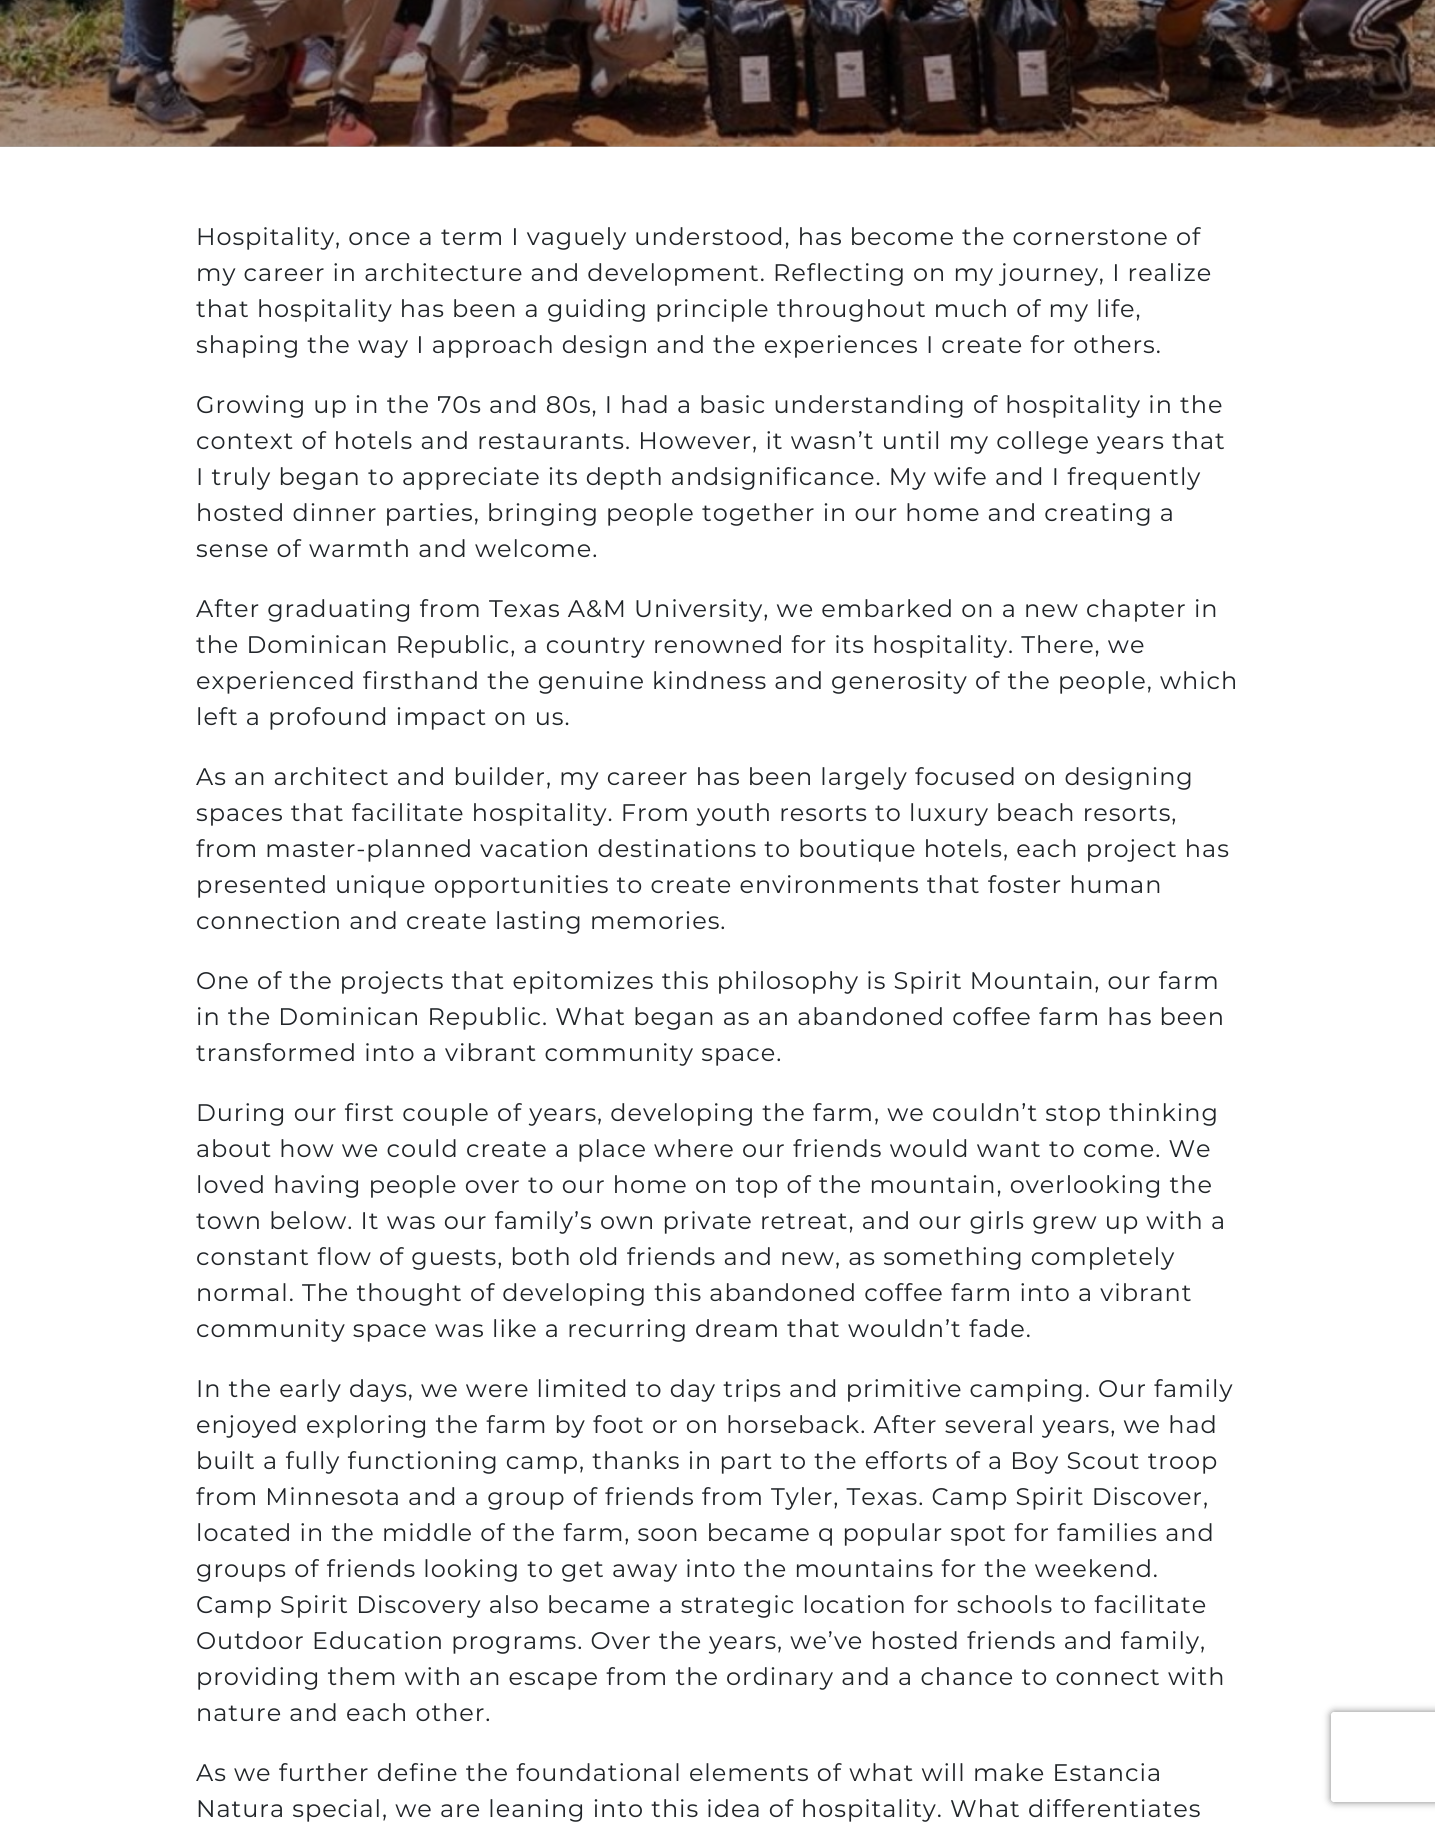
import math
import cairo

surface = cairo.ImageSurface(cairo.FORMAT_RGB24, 1435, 1822)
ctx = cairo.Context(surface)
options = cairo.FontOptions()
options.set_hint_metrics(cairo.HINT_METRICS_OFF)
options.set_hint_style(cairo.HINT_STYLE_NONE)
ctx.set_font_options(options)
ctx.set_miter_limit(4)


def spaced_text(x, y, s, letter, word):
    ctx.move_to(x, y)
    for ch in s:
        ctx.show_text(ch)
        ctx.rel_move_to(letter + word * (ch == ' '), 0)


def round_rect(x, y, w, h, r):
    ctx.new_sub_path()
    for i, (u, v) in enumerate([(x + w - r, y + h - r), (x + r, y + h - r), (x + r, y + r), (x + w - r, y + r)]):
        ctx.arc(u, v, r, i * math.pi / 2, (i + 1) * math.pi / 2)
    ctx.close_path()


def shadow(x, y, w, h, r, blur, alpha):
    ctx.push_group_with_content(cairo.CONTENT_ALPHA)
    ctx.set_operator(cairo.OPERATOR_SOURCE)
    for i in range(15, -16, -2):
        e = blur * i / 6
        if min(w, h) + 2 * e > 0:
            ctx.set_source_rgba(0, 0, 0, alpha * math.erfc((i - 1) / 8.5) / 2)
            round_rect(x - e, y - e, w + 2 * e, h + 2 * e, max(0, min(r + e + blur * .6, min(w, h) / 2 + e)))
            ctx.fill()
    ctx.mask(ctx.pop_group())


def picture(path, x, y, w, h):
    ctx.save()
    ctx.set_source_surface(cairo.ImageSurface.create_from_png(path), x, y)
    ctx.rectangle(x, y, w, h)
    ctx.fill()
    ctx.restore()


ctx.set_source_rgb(1, 1, 1)
ctx.paint()
ctx.set_source_rgb(0.651, 0.651, 0.651)
ctx.rectangle(0, 146, 1435, 1)
ctx.fill()
picture("img1.png", 0, 0, 1435, 147)
ctx.select_font_face("Montserrat")
ctx.set_font_size(24)
ctx.set_source_rgb(0.129, 0.145, 0.161)
spaced_text(196, 245, "Hospitality, once a term I vaguely understood, has become the cornerstone of", 0.95, 0)
spaced_text(196, 281, "my career in architecture and development. Reflecting on my journey, I realize", 0.95, 0)
spaced_text(196, 317, "that hospitality has been a guiding principle throughout much of my life,", 0.95, 0)
spaced_text(196, 353, "shaping the way I approach design and the experiences I create for others.", 0.95, 0)
spaced_text(196, 413, "Growing up in the 70s and 80s, I had a basic understanding of hospitality in the", 0.95, 0)
spaced_text(196, 449, "context of hotels and restaurants. However, it wasn’t until my college years that", 0.95, 0)
spaced_text(196, 485, "I truly began to appreciate its depth andsignificance. My wife and I frequently", 0.95, 0)
spaced_text(196, 521, "hosted dinner parties, bringing people together in our home and creating a", 0.95, 0)
spaced_text(196, 557, "sense of warmth and welcome.", 0.95, 0)
spaced_text(196, 617, "After graduating from Texas A&M University, we embarked on a new chapter in", 0.95, 0)
spaced_text(196, 653, "the Dominican Republic, a country renowned for its hospitality. There, we", 0.95, 0)
spaced_text(196, 689, "experienced firsthand the genuine kindness and generosity of the people, which", 0.95, 0)
spaced_text(196, 725, "left a profound impact on us.", 0.95, 0)
spaced_text(196, 785, "As an architect and builder, my career has been largely focused on designing", 0.95, 0)
spaced_text(196, 821, "spaces that facilitate hospitality. From youth resorts to luxury beach resorts,", 0.95, 0)
spaced_text(196, 857, "from master-planned vacation destinations to boutique hotels, each project has", 0.95, 0)
spaced_text(196, 893, "presented unique opportunities to create environments that foster human", 0.95, 0)
spaced_text(196, 929, "connection and create lasting memories.", 0.95, 0)
spaced_text(196, 989, "One of the projects that epitomizes this philosophy is Spirit Mountain, our farm", 0.95, 0)
spaced_text(196, 1025, "in the Dominican Republic. What began as an abandoned coffee farm has been", 0.95, 0)
spaced_text(196, 1061, "transformed into a vibrant community space.", 0.95, 0)
spaced_text(196, 1121, "During our first couple of years, developing the farm, we couldn’t stop thinking", 0.95, 0)
spaced_text(196, 1157, "about how we could create a place where our friends would want to come. We", 0.95, 0)
spaced_text(196, 1193, "loved having people over to our home on top of the mountain, overlooking the", 0.95, 0)
spaced_text(196, 1229, "town below. It was our family’s own private retreat, and our girls grew up with a", 0.95, 0)
spaced_text(196, 1265, "constant flow of guests, both old friends and new, as something completely", 0.95, 0)
spaced_text(196, 1301, "normal. The thought of developing this abandoned coffee farm into a vibrant", 0.95, 0)
spaced_text(196, 1337, "community space was like a recurring dream that wouldn’t fade.", 0.95, 0)
spaced_text(196, 1397, "In the early days, we were limited to day trips and primitive camping. Our family", 0.95, 0)
spaced_text(196, 1433, "enjoyed exploring the farm by foot or on horseback. After several years, we had", 0.95, 0)
spaced_text(196, 1469, "built a fully functioning camp, thanks in part to the efforts of a Boy Scout troop", 0.95, 0)
spaced_text(196, 1505, "from Minnesota and a group of friends from Tyler, Texas. Camp Spirit Discover,", 0.95, 0)
spaced_text(196, 1541, "located in the middle of the farm, soon became q popular spot for families and", 0.95, 0)
spaced_text(196, 1577, "groups of friends looking to get away into the mountains for the weekend.", 0.95, 0)
spaced_text(196, 1613, "Camp Spirit Discovery also became a strategic location for schools to facilitate", 0.95, 0)
spaced_text(196, 1649, "Outdoor Education programs. Over the years, we’ve hosted friends and family,", 0.95, 0)
spaced_text(196, 1685, "providing them with an escape from the ordinary and a chance to connect with", 0.95, 0)
spaced_text(196, 1721, "nature and each other.", 0.95, 0)
spaced_text(196, 1781, "As we further define the foundational elements of what will make Estancia", 0.95, 0)
spaced_text(196, 1817, "Natura special, we are leaning into this idea of hospitality. What differentiates", 0.95, 0)
ctx.save()
ctx.set_fill_rule(cairo.FILL_RULE_EVEN_ODD)
ctx.new_path()
ctx.move_to(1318, 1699)
ctx.line_to(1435, 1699)
ctx.line_to(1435, 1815)
ctx.line_to(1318, 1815)
ctx.close_path()
ctx.move_to(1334, 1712)
ctx.line_to(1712, 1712)
ctx.curve_to(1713.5, 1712, 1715, 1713.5, 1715, 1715)
ctx.line_to(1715, 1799)
ctx.curve_to(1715, 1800.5, 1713.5, 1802, 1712, 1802)
ctx.line_to(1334, 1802)
ctx.curve_to(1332.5, 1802, 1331, 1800.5, 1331, 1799)
ctx.line_to(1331, 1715)
ctx.curve_to(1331, 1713.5, 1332.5, 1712, 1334, 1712)
ctx.close_path()
ctx.clip()
ctx.set_source_rgb(0.502, 0.502, 0.502)
shadow(1331, 1712, 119, 90, 3, 4, 1)
ctx.restore()
surface.write_to_png("page.png")
